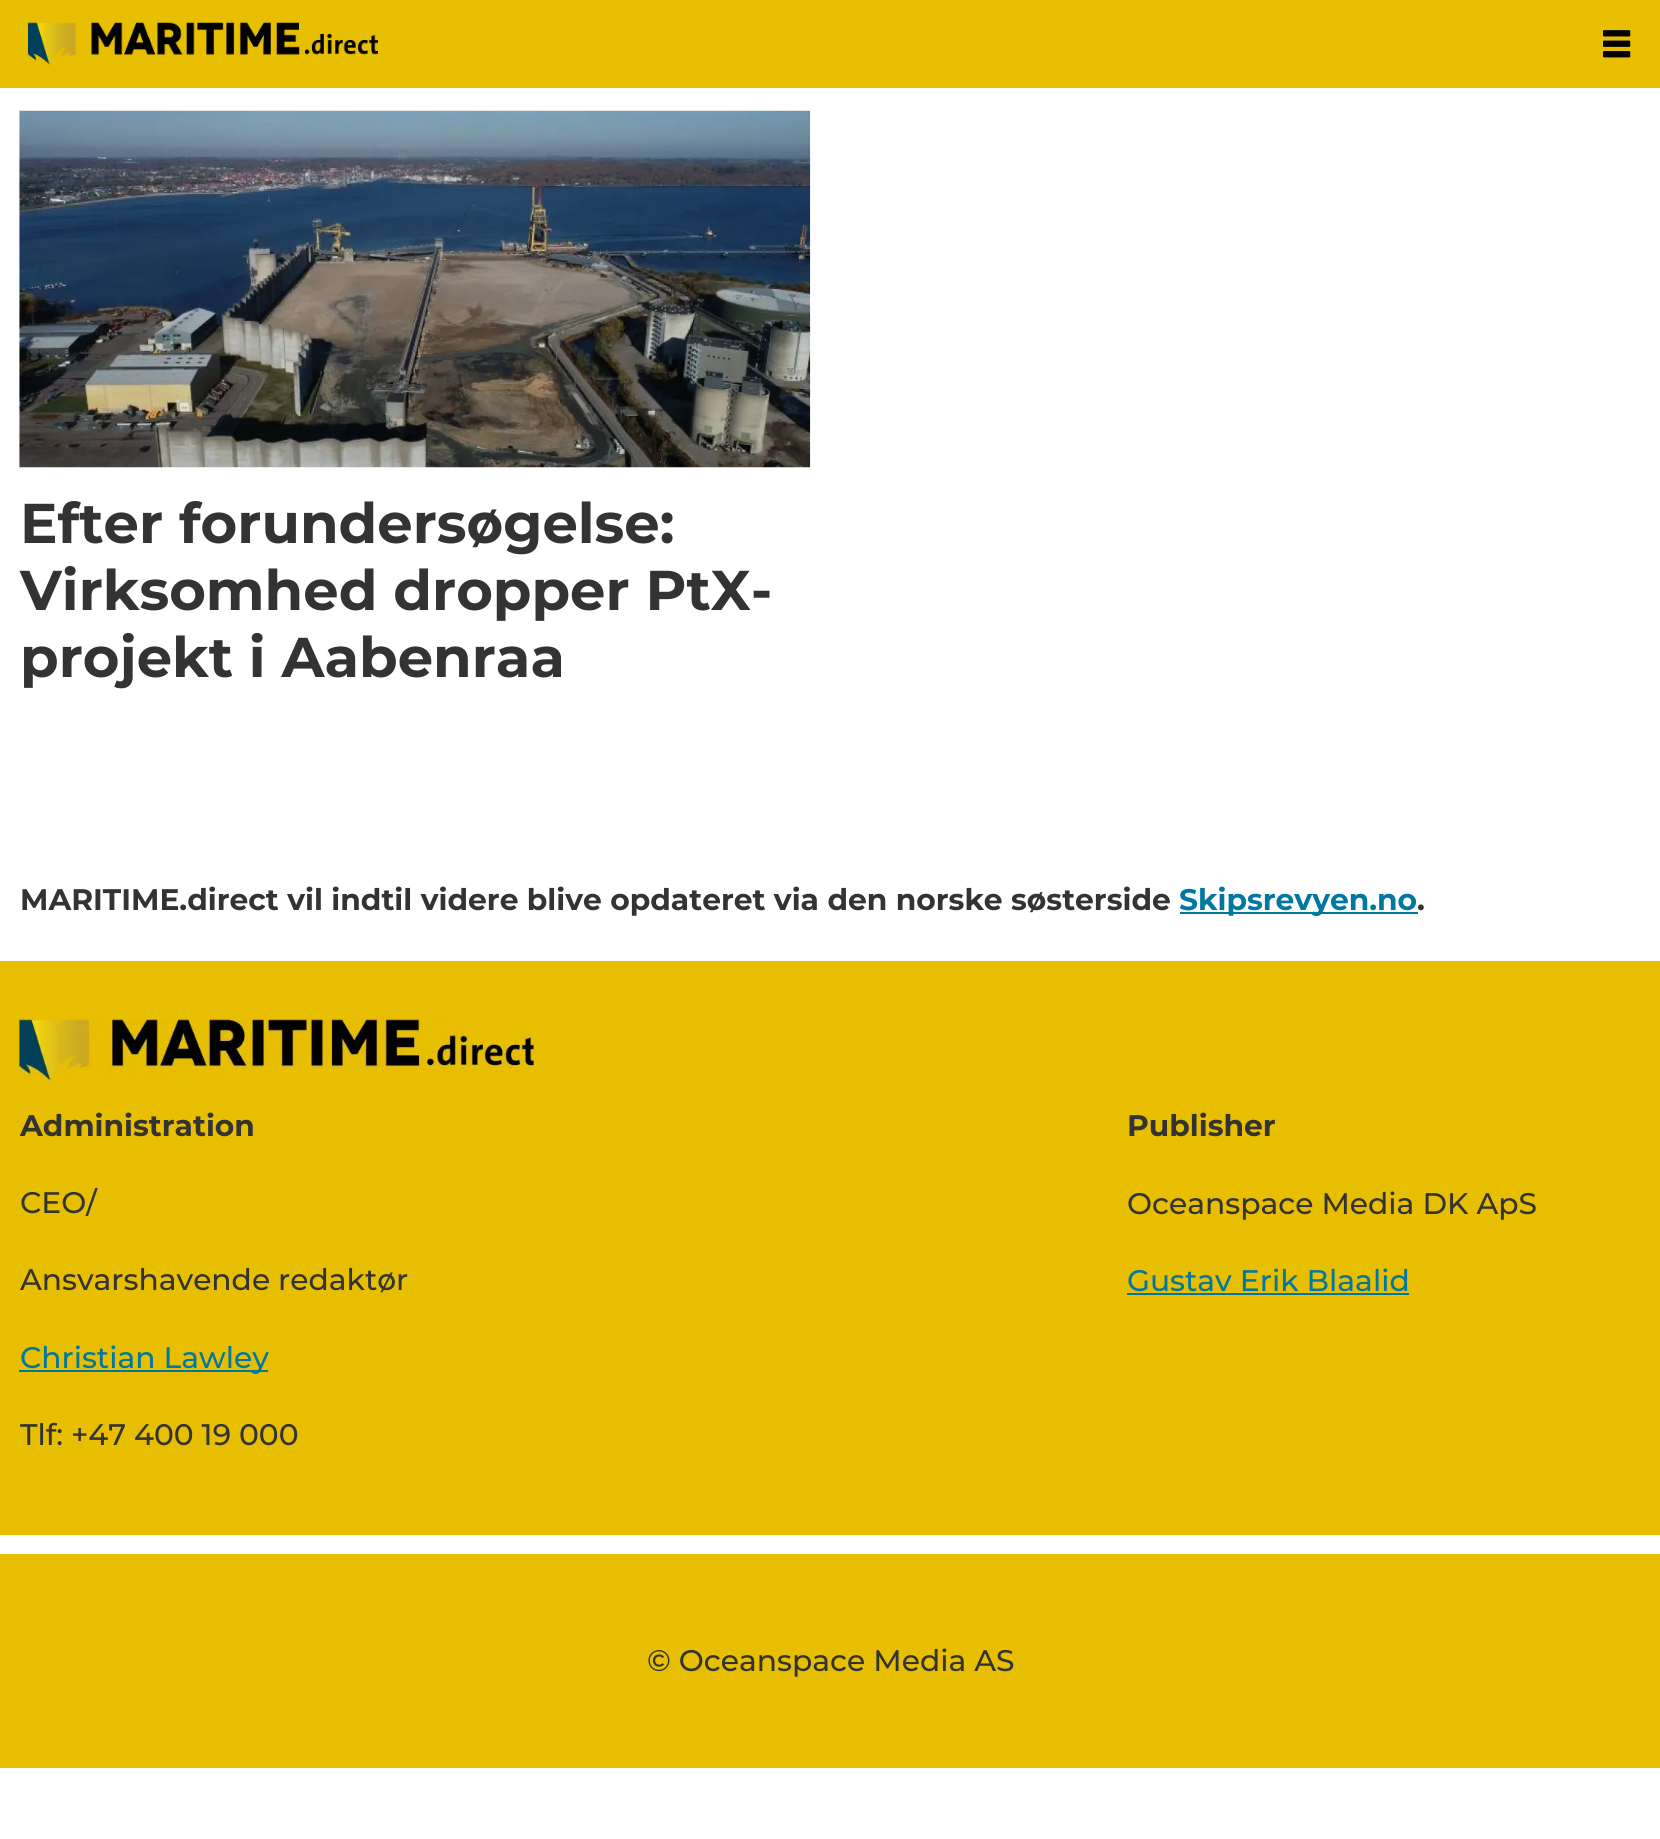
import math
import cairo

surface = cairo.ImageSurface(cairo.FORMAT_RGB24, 1660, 1839)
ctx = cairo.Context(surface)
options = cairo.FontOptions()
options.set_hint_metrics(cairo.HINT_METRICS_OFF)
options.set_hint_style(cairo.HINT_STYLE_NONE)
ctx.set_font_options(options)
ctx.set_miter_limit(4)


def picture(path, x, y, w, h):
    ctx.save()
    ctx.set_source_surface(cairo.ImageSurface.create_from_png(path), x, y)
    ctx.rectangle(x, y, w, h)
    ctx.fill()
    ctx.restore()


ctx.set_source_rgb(1, 1, 1)
ctx.paint()
ctx.set_source_rgb(0.91, 0.745, 0)
ctx.rectangle(0, 0, 1660, 88)
ctx.fill()
picture("img1.png", 28, 22, 350, 43)
picture("img2.png", 1603, 30, 28, 28)
picture("img3.png", 19, 110, 792, 358)
ctx.select_font_face("Montserrat", cairo.FONT_SLANT_NORMAL, cairo.FONT_WEIGHT_BOLD)
ctx.set_font_size(56)
ctx.set_source_rgb(0.2, 0.2, 0.2)
ctx.move_to(20, 543)
ctx.show_text("Efter forundersøgelse:")
ctx.move_to(20, 610)
ctx.show_text("Virksomhed dropper PtX-")
ctx.move_to(20, 677)
ctx.show_text("projekt i Aabenraa")
ctx.set_font_size(29.75)
ctx.move_to(20, 910)
ctx.show_text("MARITIME.direct vil indtil videre blive opdateret via den norske søsterside")
ctx.set_source_rgb(0, 0.471, 0.627)
ctx.rectangle(1180, 912, 238, 2)
ctx.fill()
ctx.move_to(1179, 910)
ctx.show_text("Skipsrevyen.no")
ctx.set_source_rgb(0.2, 0.2, 0.2)
ctx.move_to(1417, 910)
ctx.show_text(".")
ctx.set_source_rgb(0.91, 0.745, 0.004)
ctx.rectangle(0, 961, 1660, 574)
ctx.fill()
picture("img4.png", 19, 1019, 515, 63)
ctx.set_source_rgb(0.2, 0.2, 0.2)
ctx.move_to(20, 1136)
ctx.show_text("Administration")
ctx.select_font_face("Montserrat Medium")
ctx.move_to(20, 1213)
ctx.show_text("CEO/")
ctx.move_to(20, 1290)
ctx.show_text("Ansvarshavende redaktør")
ctx.set_source_rgb(0, 0.471, 0.627)
ctx.rectangle(19, 1370, 249, 2)
ctx.fill()
ctx.move_to(20, 1368)
ctx.show_text("Christian Lawley")
ctx.set_source_rgb(0.2, 0.2, 0.2)
ctx.move_to(20, 1445)
ctx.show_text("Tlf: +47 400 19 000")
ctx.select_font_face("Montserrat", cairo.FONT_SLANT_NORMAL, cairo.FONT_WEIGHT_BOLD)
ctx.move_to(1127, 1136)
ctx.show_text("Publisher")
ctx.select_font_face("Montserrat Medium")
ctx.move_to(1127, 1214)
ctx.show_text("Oceanspace Media DK ApS")
ctx.set_source_rgb(0, 0.471, 0.627)
ctx.move_to(1127, 1291)
ctx.show_text("Gustav Erik Blaalid")
ctx.rectangle(1127, 1293, 282, 2)
ctx.fill()
ctx.set_source_rgb(0.91, 0.745, 0.004)
ctx.rectangle(0, 1554, 1660, 214)
ctx.fill()
ctx.set_source_rgb(0.2, 0.2, 0.2)
ctx.move_to(647, 1671)
ctx.show_text("© Oceanspace Media AS")
surface.write_to_png("page.png")
